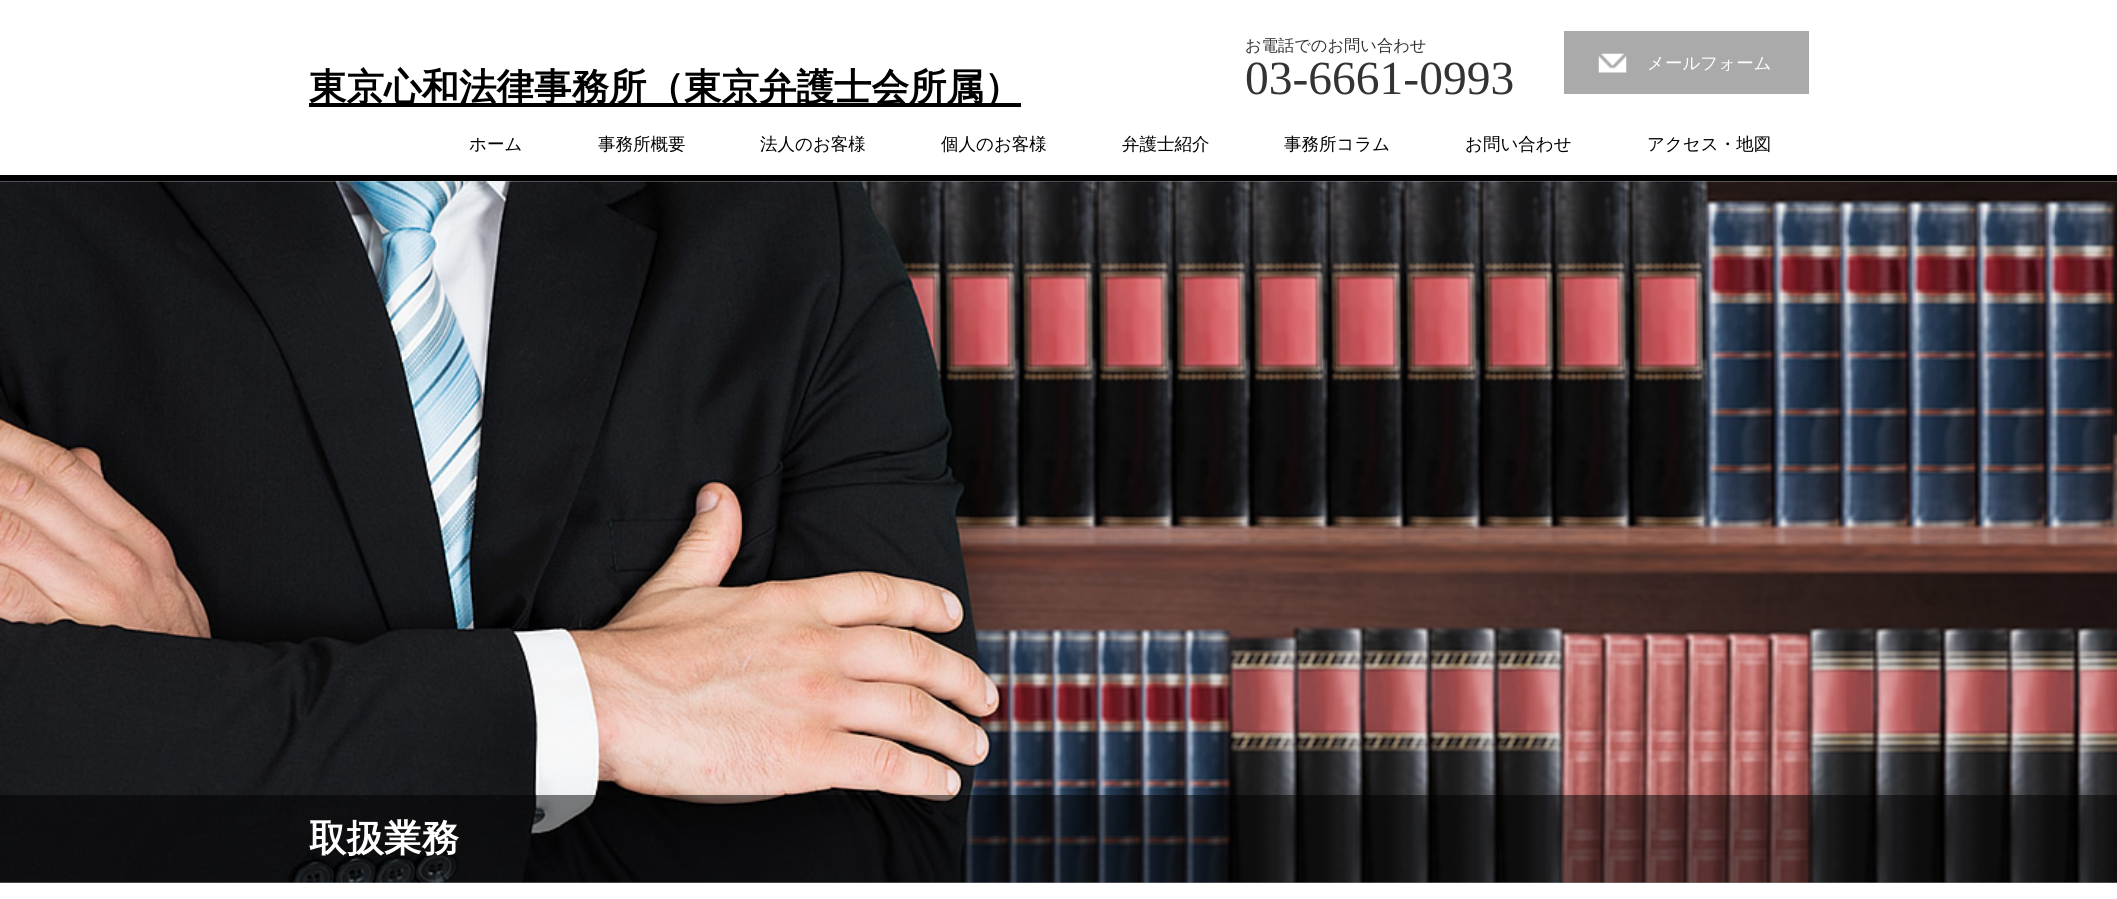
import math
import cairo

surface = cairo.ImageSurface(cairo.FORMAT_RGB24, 2117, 899)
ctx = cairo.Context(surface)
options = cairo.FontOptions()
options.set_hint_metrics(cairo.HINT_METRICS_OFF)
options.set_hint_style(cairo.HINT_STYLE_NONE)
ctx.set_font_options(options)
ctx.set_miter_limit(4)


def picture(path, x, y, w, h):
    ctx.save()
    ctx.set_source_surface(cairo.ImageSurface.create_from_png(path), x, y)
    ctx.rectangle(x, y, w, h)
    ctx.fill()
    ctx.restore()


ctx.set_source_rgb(1, 1, 1)
ctx.paint()
ctx.set_source_rgb(0, 0, 0)
ctx.rectangle(0, 175, 2117, 6)
ctx.fill()
ctx.rectangle(309, 103, 712, 4)
ctx.fill()
ctx.select_font_face("WenQuanYi Zen Hei", cairo.FONT_SLANT_NORMAL, cairo.FONT_WEIGHT_BOLD)
ctx.set_font_size(37.5)
ctx.move_to(309, 100)
ctx.show_text("東京心和法律事務所（東京弁護士会所属）")
ctx.select_font_face("WenQuanYi Zen Hei Medium")
ctx.set_font_size(16.25)
ctx.set_source_rgb(0.2, 0.2, 0.2)
ctx.move_to(1245, 51)
ctx.show_text("お電話でのお問い合わせ")
ctx.select_font_face("Liberation Serif")
ctx.set_font_size(47.5)
ctx.move_to(1245, 94)
ctx.show_text("03-6661-0993")
ctx.set_source_rgb(0.667, 0.667, 0.667)
ctx.rectangle(1564, 31, 245, 63)
ctx.fill()
picture("img1.png", 1598, 53, 29, 20)
ctx.select_font_face("WenQuanYi Zen Hei Medium")
ctx.set_font_size(17.5)
ctx.set_source_rgb(1, 1, 1)
ctx.move_to(1647, 69)
ctx.show_text("メールフォーム")
ctx.set_source_rgb(0, 0, 0)
ctx.move_to(469, 150)
ctx.show_text("ホーム")
ctx.move_to(598, 150)
ctx.show_text("事務所概要")
ctx.move_to(760, 150)
ctx.show_text("法人のお客様")
ctx.move_to(941, 150)
ctx.show_text("個人のお客様")
ctx.move_to(1122, 150)
ctx.show_text("弁護士紹介")
ctx.move_to(1284, 150)
ctx.show_text("事務所コラム")
ctx.move_to(1465, 150)
ctx.show_text("お問い合わせ")
ctx.move_to(1647, 150)
ctx.show_text("アクセス・地図")
picture("img2.png", 0, 181, 2117, 702)
ctx.set_source_rgba(0, 0, 0, 0.5)
ctx.rectangle(0, 795, 2117, 88)
ctx.fill()
ctx.select_font_face("WenQuanYi Zen Hei", cairo.FONT_SLANT_NORMAL, cairo.FONT_WEIGHT_BOLD)
ctx.set_font_size(37.5)
ctx.set_source_rgb(1, 1, 1)
ctx.move_to(309, 851)
ctx.show_text("取扱業務")
surface.write_to_png("page.png")
